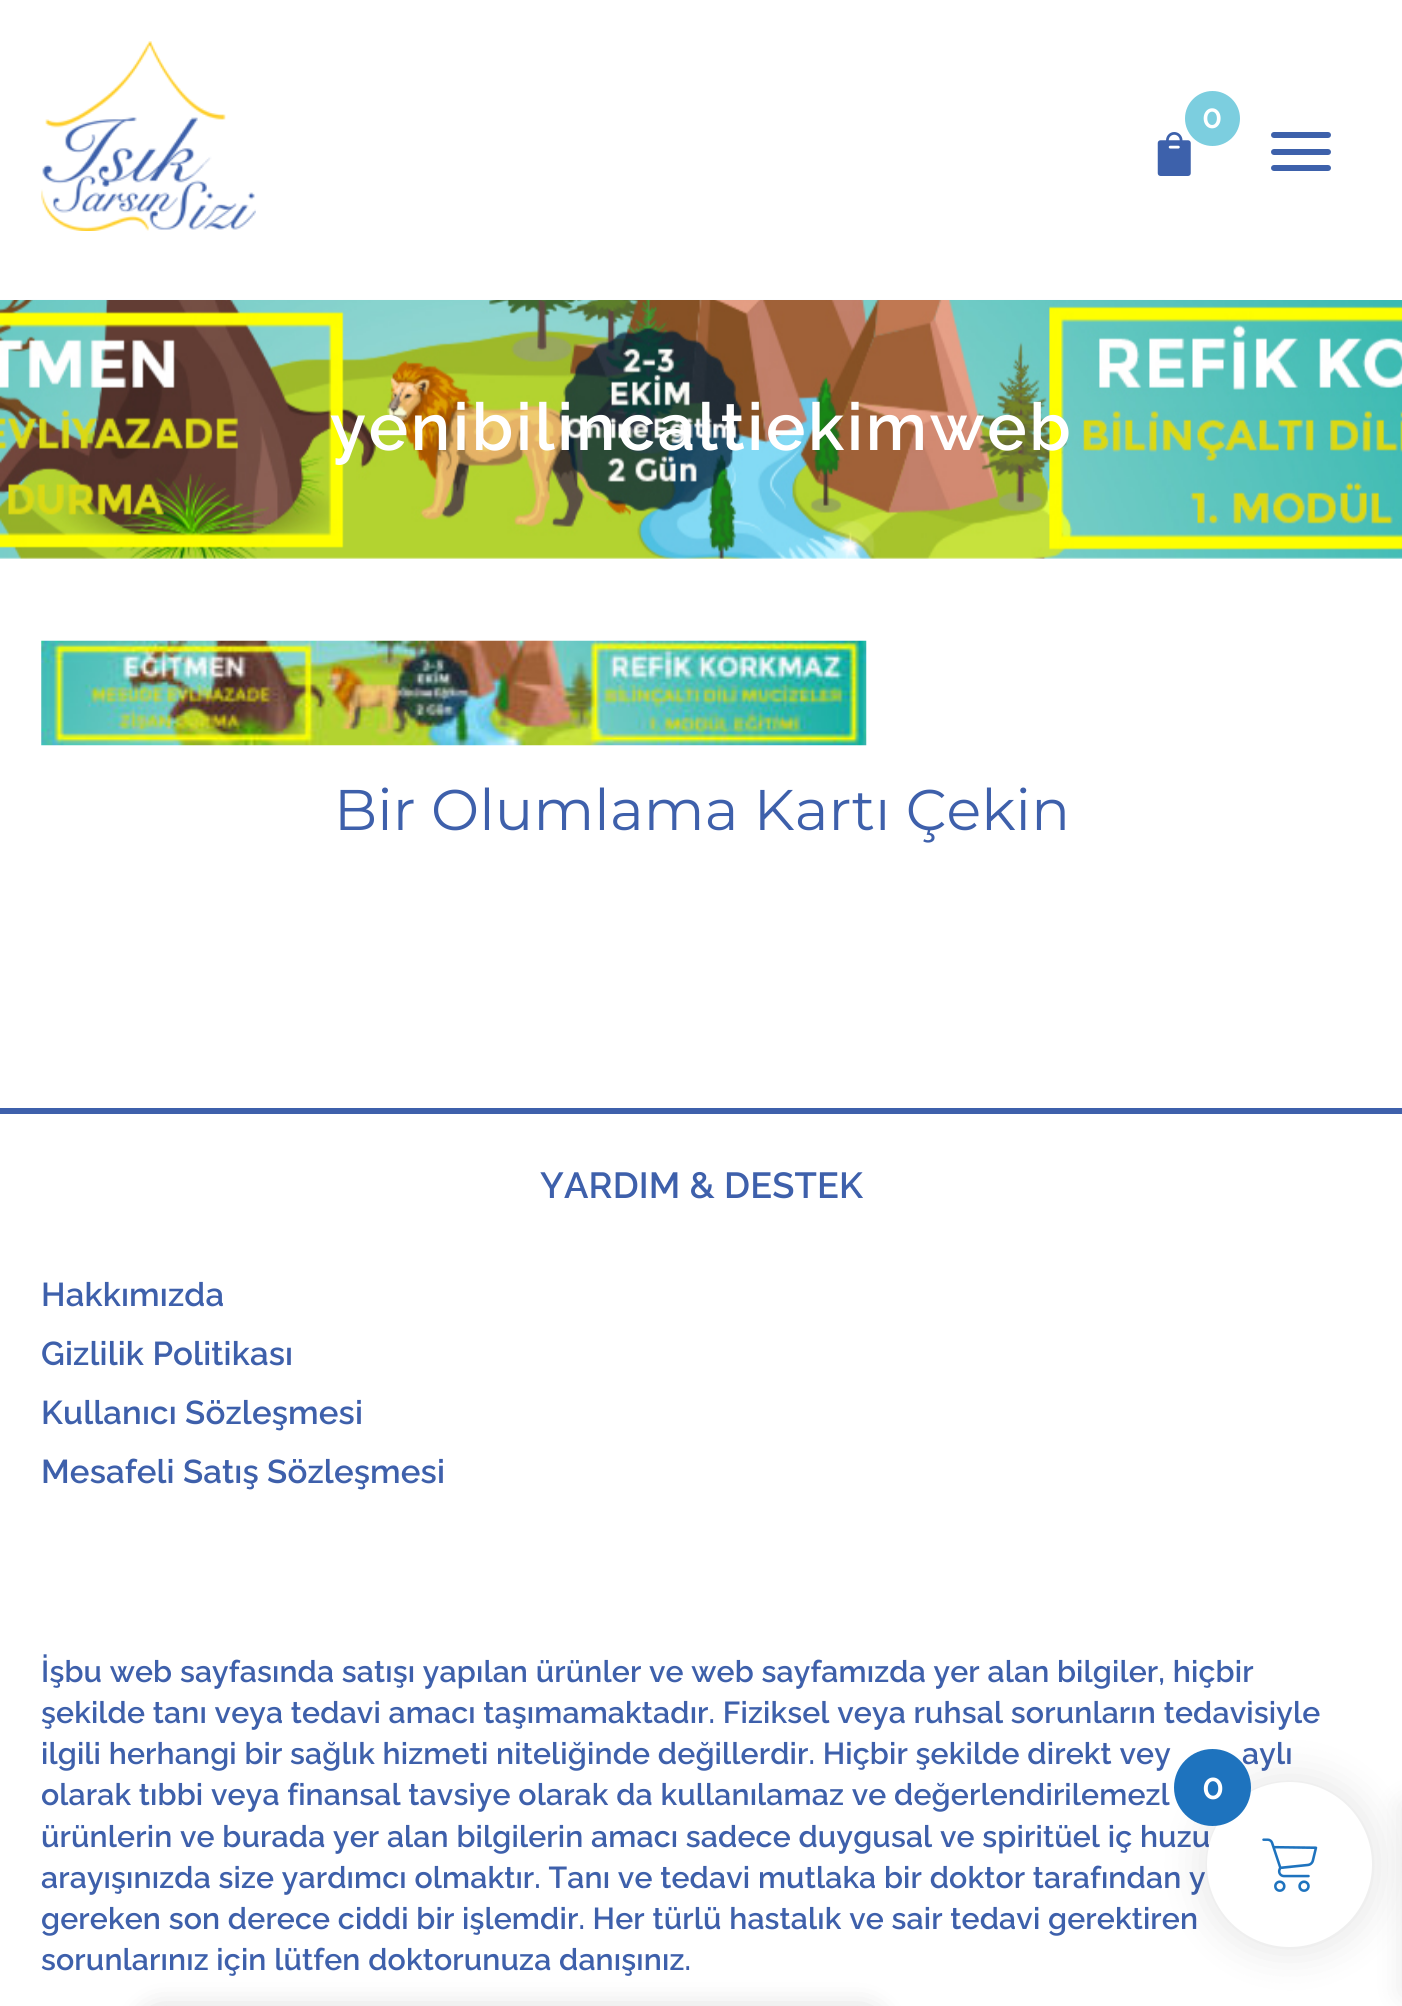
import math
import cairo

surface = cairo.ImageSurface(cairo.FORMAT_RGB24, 1402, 2006)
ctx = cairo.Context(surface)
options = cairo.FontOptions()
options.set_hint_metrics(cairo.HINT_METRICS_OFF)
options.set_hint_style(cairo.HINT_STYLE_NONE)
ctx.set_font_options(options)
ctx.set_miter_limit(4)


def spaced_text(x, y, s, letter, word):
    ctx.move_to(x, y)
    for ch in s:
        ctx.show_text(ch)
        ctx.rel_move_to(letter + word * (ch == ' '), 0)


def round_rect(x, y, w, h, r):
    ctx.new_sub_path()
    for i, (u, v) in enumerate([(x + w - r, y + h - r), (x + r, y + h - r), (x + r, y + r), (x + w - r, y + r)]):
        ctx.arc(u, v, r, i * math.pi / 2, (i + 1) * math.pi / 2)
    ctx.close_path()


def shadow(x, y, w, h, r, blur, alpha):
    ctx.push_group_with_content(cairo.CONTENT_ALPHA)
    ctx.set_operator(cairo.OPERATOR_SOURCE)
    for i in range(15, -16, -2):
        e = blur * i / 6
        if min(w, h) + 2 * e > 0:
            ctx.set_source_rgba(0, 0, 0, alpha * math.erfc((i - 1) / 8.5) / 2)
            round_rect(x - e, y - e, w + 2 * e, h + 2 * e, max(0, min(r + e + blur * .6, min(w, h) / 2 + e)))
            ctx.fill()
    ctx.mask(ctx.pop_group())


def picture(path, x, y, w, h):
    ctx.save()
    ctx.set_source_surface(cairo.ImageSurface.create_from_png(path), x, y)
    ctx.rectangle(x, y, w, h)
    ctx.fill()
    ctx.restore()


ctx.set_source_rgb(1, 1, 1)
ctx.paint()
picture("img1.png", 41, 41, 215, 190)
picture("img2.png", 1157, 132, 34, 44)
ctx.set_source_rgb(0.486, 0.808, 0.875)
ctx.arc(1212.5, 118.5, 27.5, 0, 2 * math.pi)
ctx.fill()
ctx.select_font_face("Raleway Thin")
ctx.set_font_size(33)
ctx.set_source_rgb(1, 1, 1)
spaced_text(1202, 128, "0", 0.15, 0)
ctx.set_source_rgb(0.239, 0.38, 0.671)
round_rect(1271, 132, 60, 6, 3)
ctx.fill()
round_rect(1271, 149, 60, 6, 3)
ctx.fill()
round_rect(1271, 165, 60, 6, 3)
ctx.fill()
picture("img3.png", 0, 299, 1402, 260)
picture("img4.png", 0, 300, 1402, 259)
ctx.set_font_size(66)
ctx.set_source_rgb(1, 1, 1)
spaced_text(330, 450, "yenibilincaltiekimweb", 2.75, 0)
picture("img5.png", 41, 640, 826, 106)
ctx.select_font_face("Montserrat Thin")
ctx.set_font_size(57.25)
ctx.set_source_rgb(0.243, 0.376, 0.671)
spaced_text(334, 830, "Bir Olumlama Kartı Çekin", 0.15, 0)
ctx.rectangle(0, 1108, 1402, 6)
ctx.fill()
ctx.select_font_face("Raleway Thin")
ctx.set_font_size(36.25)
spaced_text(540, 1198, "YARDIM & DESTEK", 0.15, 0)
ctx.set_font_size(33)
spaced_text(41, 1306, "Hakkımızda", 0.15, 0)
spaced_text(41, 1365, "Gizlilik Politikası", 0.15, 0)
spaced_text(41, 1424, "Kullanıcı Sözleşmesi", 0.15, 0)
spaced_text(41, 1483, "Mesafeli Satış Sözleşmesi", 0.15, 0)
ctx.set_font_size(30.25)
spaced_text(41, 1682, "İşbu web sayfasında satışı yapılan ürünler ve web sayfamızda yer alan bilgiler, hiçbir", 0.15, 0)
spaced_text(41, 1723, "şekilde tanı veya tedavi amacı taşımamaktadır. Fiziksel veya ruhsal sorunların tedavisiyle", 0.15, 0)
spaced_text(41, 1764, "ilgili herhangi bir sağlık hizmeti niteliğinde değillerdir. Hiçbir şekilde direkt vey", 0.15, 0)
spaced_text(1242, 1764, "aylı", 0.15, 0)
spaced_text(41, 1805, "olarak tıbbi veya finansal tavsiye olarak da kullanılamaz ve değerlendirilemezl", 0.15, 0)
spaced_text(41, 1847, "ürünlerin ve burada yer alan bilgilerin amacı sadece duygusal ve spiritüel iç huzu", 0.15, 0)
spaced_text(41, 1888, "arayışınızda size yardımcı olmaktır. Tanı ve tedavi mutlaka bir doktor tarafından y", 0.15, 0)
spaced_text(41, 1929, "gereken son derece ciddi bir işlemdir. Her türlü hastalık ve sair tedavi gerektiren", 0.15, 0)
spaced_text(41, 1970, "sorunlarınız için lütfen doktorunuza danışınız.", 0.15, 0)
ctx.set_source_rgb(0, 0, 0)
shadow(1202, 1777, 176, 176, 88, 20.5, 0.1)
shadow(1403, 1804, 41, 190, 0, 14, 0.1)
ctx.set_source_rgb(1, 1, 1)
ctx.arc(1289.5, 1864.5, 82.5, 0, 2 * math.pi)
ctx.fill()
ctx.set_source_rgb(0.118, 0.451, 0.745)
ctx.arc(1212.5, 1787.5, 38.5, 0, 2 * math.pi)
ctx.fill()
ctx.set_font_size(36)
ctx.set_source_rgb(1, 1, 1)
spaced_text(1202, 1799, "0", 0.15, 0)
picture("img6.png", 1262, 1838, 56, 54)
ctx.set_source_rgb(0, 0, 0)
shadow(138, 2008, 748, 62, 22, 14, 0.15)
surface.write_to_png("page.png")
